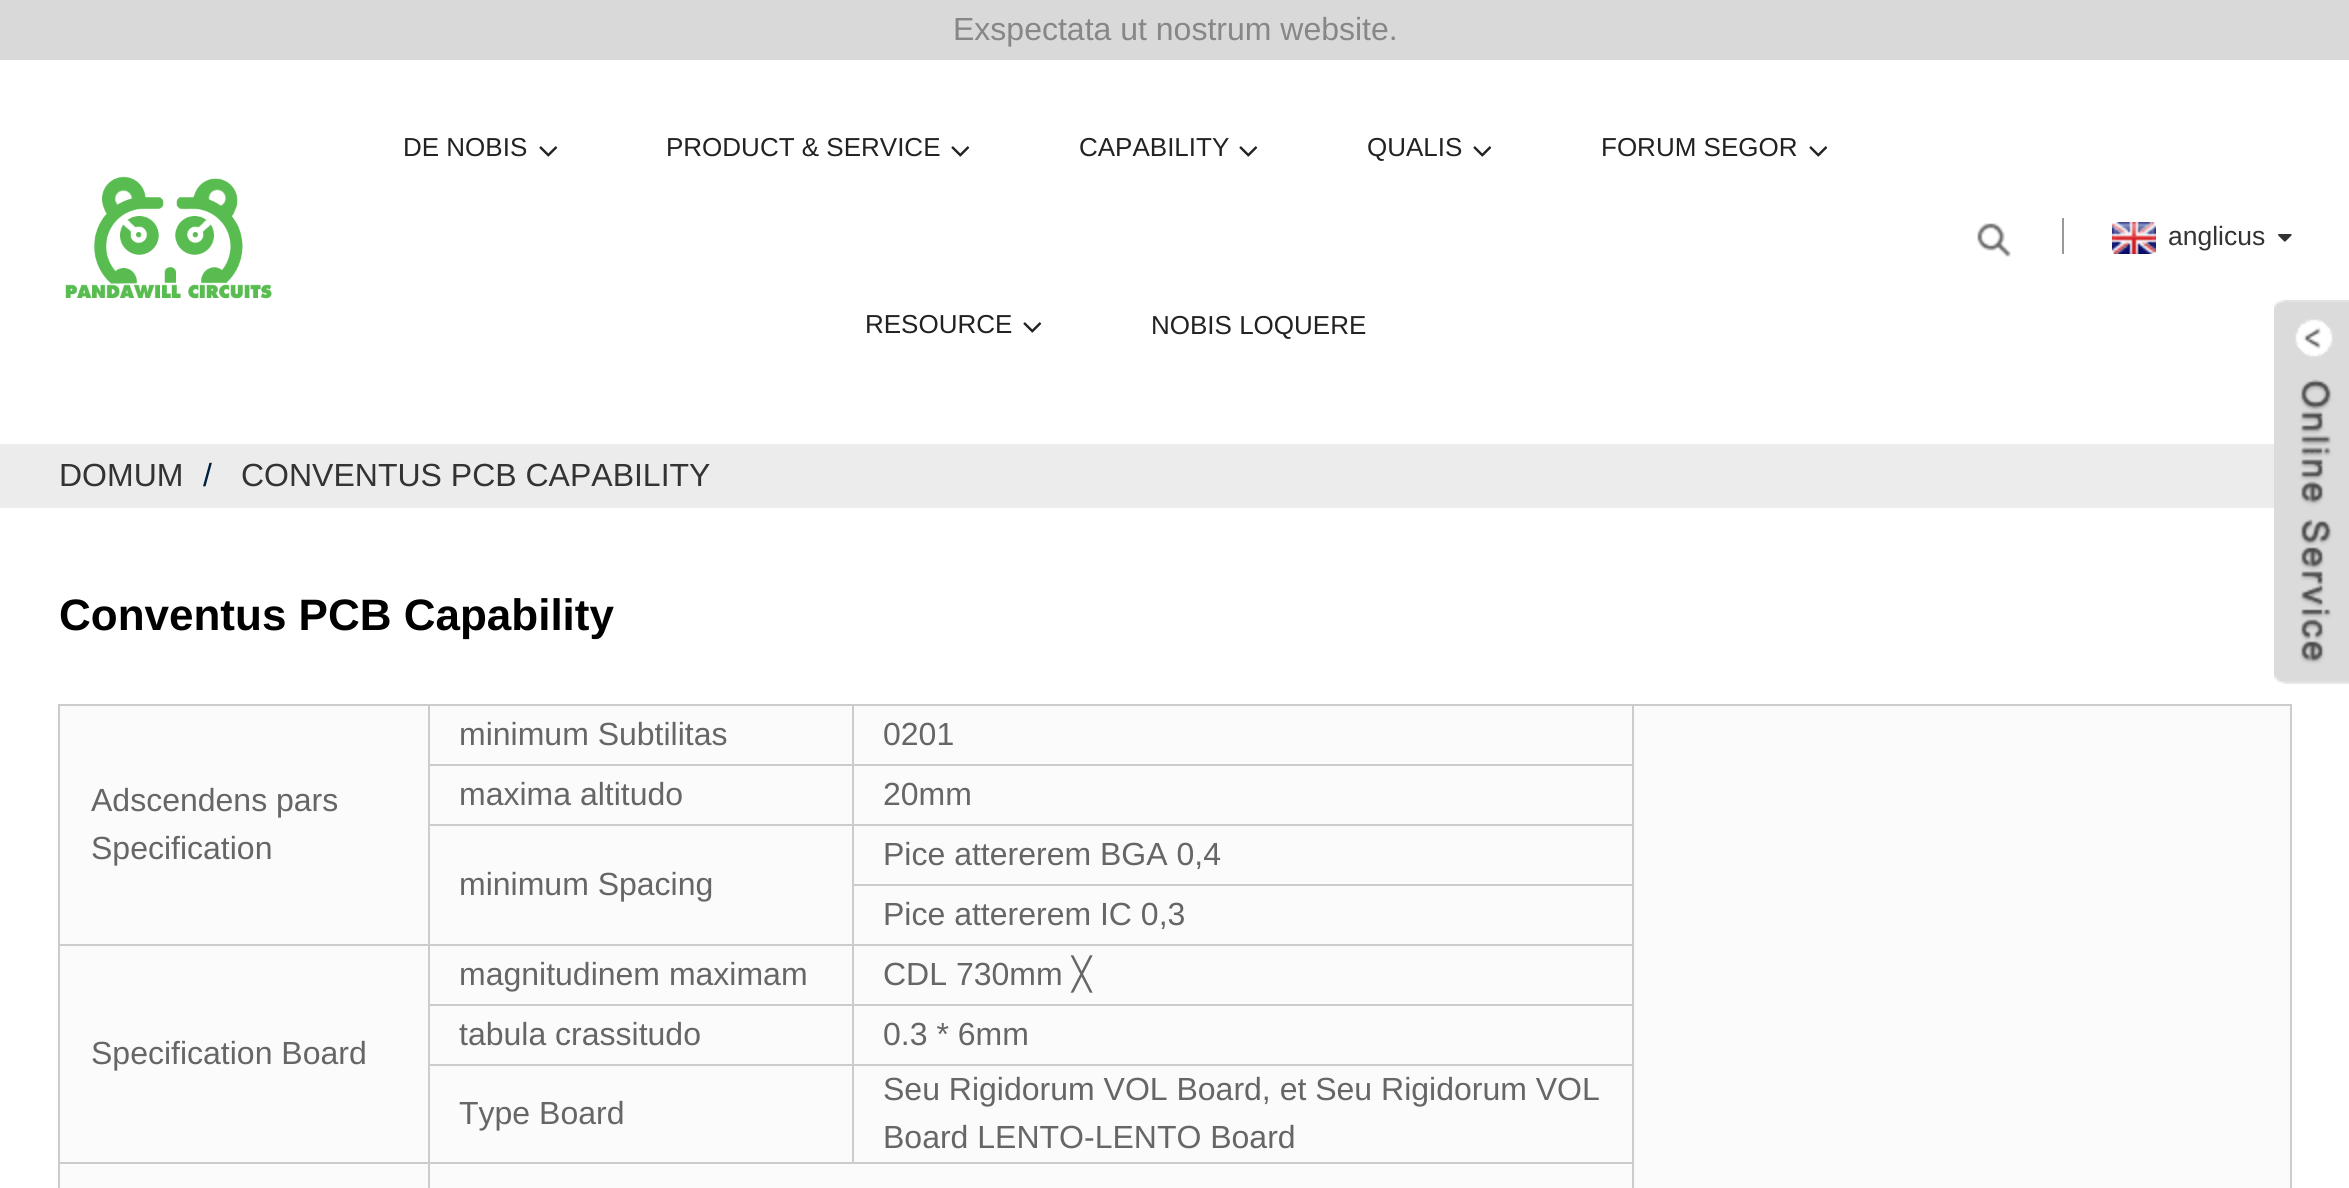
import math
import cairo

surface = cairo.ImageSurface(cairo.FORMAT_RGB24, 2349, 1188)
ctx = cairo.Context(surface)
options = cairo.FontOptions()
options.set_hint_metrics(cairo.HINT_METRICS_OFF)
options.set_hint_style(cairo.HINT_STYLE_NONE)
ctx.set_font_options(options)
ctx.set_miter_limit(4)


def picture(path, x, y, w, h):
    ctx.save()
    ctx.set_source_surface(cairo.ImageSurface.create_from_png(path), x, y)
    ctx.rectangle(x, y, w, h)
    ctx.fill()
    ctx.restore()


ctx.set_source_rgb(1, 1, 1)
ctx.paint()
ctx.set_source_rgb(0.851, 0.851, 0.851)
ctx.rectangle(0, 0, 2349, 60)
ctx.fill()
ctx.select_font_face("Liberation Sans")
ctx.set_font_size(32)
ctx.set_source_rgb(0.529, 0.529, 0.529)
ctx.move_to(953, 40)
ctx.show_text("Exspectata ut nostrum website.")
picture("img1.png", 65, 176, 207, 123)
ctx.set_font_size(26)
ctx.set_source_rgb(0.133, 0.133, 0.133)
ctx.move_to(403, 156)
ctx.show_text("DE NOBIS")
picture("img2.png", 539, 146, 19, 11)
ctx.move_to(666, 156)
ctx.show_text("PRODUCT & SERVICE")
picture("img2.png", 951, 146, 19, 11)
ctx.move_to(1079, 156)
ctx.show_text("CAPABILITY")
picture("img2.png", 1239, 146, 19, 11)
ctx.move_to(1367, 156)
ctx.show_text("QUALIS")
picture("img2.png", 1473, 146, 19, 11)
ctx.move_to(1601, 156)
ctx.show_text("FORUM SEGOR")
picture("img2.png", 1809, 146, 19, 11)
ctx.move_to(865, 333)
ctx.show_text("RESOURCE")
picture("img2.png", 1023, 322, 19, 11)
ctx.move_to(1151, 334)
ctx.show_text("NOBIS LOQUERE")
picture("img3.png", 1977, 223, 34, 34)
ctx.set_source_rgb(0.6, 0.6, 0.6)
ctx.rectangle(2062, 218, 2, 36)
ctx.fill()
picture("img4.png", 2112, 222, 44, 32)
ctx.set_font_size(26.5)
ctx.set_source_rgb(0.2, 0.2, 0.2)
ctx.move_to(2168, 245)
ctx.show_text("anglicus")
picture("img5.png", 2278, 234, 14, 8)
ctx.set_source_rgb(0.922, 0.922, 0.922)
ctx.rectangle(0, 444, 2274, 64)
ctx.fill()
ctx.set_font_size(32)
ctx.set_source_rgb(0.2, 0.2, 0.2)
ctx.move_to(59, 486)
ctx.show_text("DOMUM")
ctx.set_source_rgb(0, 0.129, 0.251)
ctx.move_to(203, 486)
ctx.show_text("/")
ctx.set_source_rgb(0.2, 0.2, 0.2)
ctx.move_to(241, 486)
ctx.show_text("CONVENTUS PCB CAPABILITY")
picture("img6.png", 2274, 300, 75, 384)
ctx.select_font_face("Liberation Sans", cairo.FONT_SLANT_NORMAL, cairo.FONT_WEIGHT_BOLD)
ctx.set_font_size(44)
ctx.set_source_rgb(0, 0, 0)
ctx.move_to(59, 630)
ctx.show_text("Conventus PCB Capability")
ctx.set_source_rgb(0.984, 0.984, 0.984)
ctx.rectangle(430, 706, 422, 58)
ctx.fill()
ctx.set_source_rgb(0.8, 0.8, 0.8)
ctx.rectangle(1632, 704, 660, 2)
ctx.fill()
ctx.rectangle(852, 764, 782, 2)
ctx.fill()
ctx.rectangle(852, 824, 782, 2)
ctx.fill()
ctx.rectangle(852, 884, 782, 2)
ctx.fill()
ctx.rectangle(852, 944, 782, 2)
ctx.fill()
ctx.rectangle(852, 1004, 782, 2)
ctx.fill()
ctx.rectangle(852, 1064, 782, 2)
ctx.fill()
ctx.rectangle(428, 1162, 1206, 2)
ctx.fill()
ctx.rectangle(1632, 704, 2, 484)
ctx.fill()
ctx.rectangle(852, 704, 782, 2)
ctx.fill()
ctx.rectangle(852, 1064, 2, 100)
ctx.fill()
ctx.rectangle(428, 1064, 426, 2)
ctx.fill()
ctx.rectangle(852, 1004, 2, 62)
ctx.fill()
ctx.rectangle(428, 1004, 426, 2)
ctx.fill()
ctx.rectangle(852, 944, 2, 62)
ctx.fill()
ctx.rectangle(428, 944, 426, 2)
ctx.fill()
ctx.rectangle(852, 884, 2, 62)
ctx.fill()
ctx.rectangle(852, 824, 2, 62)
ctx.fill()
ctx.rectangle(428, 824, 426, 2)
ctx.fill()
ctx.rectangle(852, 764, 2, 62)
ctx.fill()
ctx.rectangle(428, 764, 426, 2)
ctx.fill()
ctx.rectangle(852, 704, 2, 62)
ctx.fill()
ctx.rectangle(428, 704, 426, 2)
ctx.fill()
ctx.rectangle(428, 1162, 2, 26)
ctx.fill()
ctx.rectangle(58, 1162, 372, 2)
ctx.fill()
ctx.rectangle(428, 1064, 2, 100)
ctx.fill()
ctx.rectangle(428, 1004, 2, 62)
ctx.fill()
ctx.rectangle(428, 944, 2, 62)
ctx.fill()
ctx.rectangle(58, 944, 372, 2)
ctx.fill()
ctx.rectangle(428, 824, 2, 122)
ctx.fill()
ctx.rectangle(428, 764, 2, 62)
ctx.fill()
ctx.rectangle(428, 704, 2, 62)
ctx.fill()
ctx.select_font_face("Liberation Sans")
ctx.set_font_size(32)
ctx.set_source_rgb(0.4, 0.4, 0.4)
ctx.move_to(459, 745)
ctx.show_text("minimum Subtilitas")
ctx.set_source_rgb(0.984, 0.984, 0.984)
ctx.rectangle(854, 706, 778, 58)
ctx.fill()
ctx.set_source_rgb(0.4, 0.4, 0.4)
ctx.move_to(883, 745)
ctx.show_text("0201")
ctx.set_source_rgb(0.984, 0.984, 0.984)
ctx.rectangle(1634, 706, 656, 482)
ctx.fill()
ctx.set_source_rgb(0.8, 0.8, 0.8)
ctx.rectangle(2290, 704, 2, 484)
ctx.fill()
ctx.set_source_rgb(0.984, 0.984, 0.984)
ctx.rectangle(60, 706, 368, 238)
ctx.fill()
ctx.set_source_rgb(0.8, 0.8, 0.8)
ctx.rectangle(58, 704, 372, 2)
ctx.fill()
ctx.rectangle(58, 1162, 2, 26)
ctx.fill()
ctx.rectangle(58, 944, 2, 220)
ctx.fill()
ctx.rectangle(58, 704, 2, 242)
ctx.fill()
ctx.set_source_rgb(0.4, 0.4, 0.4)
ctx.move_to(91, 811)
ctx.show_text("Adscendens pars")
ctx.move_to(91, 859)
ctx.show_text("Specification")
ctx.set_source_rgb(0.984, 0.984, 0.984)
ctx.rectangle(430, 766, 422, 58)
ctx.fill()
ctx.set_source_rgb(0.4, 0.4, 0.4)
ctx.move_to(459, 805)
ctx.show_text("maxima altitudo")
ctx.set_source_rgb(0.984, 0.984, 0.984)
ctx.rectangle(854, 766, 778, 58)
ctx.fill()
ctx.set_source_rgb(0.4, 0.4, 0.4)
ctx.move_to(883, 805)
ctx.show_text("20mm")
ctx.set_source_rgb(0.984, 0.984, 0.984)
ctx.rectangle(854, 826, 778, 58)
ctx.fill()
ctx.set_source_rgb(0.4, 0.4, 0.4)
ctx.move_to(883, 865)
ctx.show_text("Pice attererem BGA 0,4")
ctx.set_source_rgb(0.984, 0.984, 0.984)
ctx.rectangle(430, 826, 422, 118)
ctx.fill()
ctx.set_source_rgb(0.4, 0.4, 0.4)
ctx.move_to(459, 895)
ctx.show_text("minimum Spacing")
ctx.set_source_rgb(0.984, 0.984, 0.984)
ctx.rectangle(854, 886, 778, 58)
ctx.fill()
ctx.set_source_rgb(0.4, 0.4, 0.4)
ctx.move_to(883, 925)
ctx.show_text("Pice attererem IC 0,3")
ctx.set_source_rgb(0.984, 0.984, 0.984)
ctx.rectangle(430, 946, 422, 58)
ctx.fill()
ctx.set_source_rgb(0.4, 0.4, 0.4)
ctx.move_to(459, 985)
ctx.show_text("magnitudinem maximam")
ctx.set_source_rgb(0.984, 0.984, 0.984)
ctx.rectangle(854, 946, 778, 58)
ctx.fill()
ctx.set_source_rgb(0.4, 0.4, 0.4)
ctx.move_to(883, 985)
ctx.show_text("CDL 730mm")
ctx.select_font_face("DejaVu Sans")
ctx.move_to(1072, 985)
ctx.show_text("╳")
ctx.set_source_rgb(0.984, 0.984, 0.984)
ctx.rectangle(60, 946, 368, 216)
ctx.fill()
ctx.select_font_face("Liberation Sans")
ctx.set_source_rgb(0.4, 0.4, 0.4)
ctx.move_to(91, 1064)
ctx.show_text("Specification Board")
ctx.set_source_rgb(0.984, 0.984, 0.984)
ctx.rectangle(430, 1006, 422, 58)
ctx.fill()
ctx.set_source_rgb(0.4, 0.4, 0.4)
ctx.move_to(459, 1045)
ctx.show_text("tabula crassitudo")
ctx.set_source_rgb(0.984, 0.984, 0.984)
ctx.rectangle(854, 1006, 778, 58)
ctx.fill()
ctx.set_source_rgb(0.4, 0.4, 0.4)
ctx.move_to(883, 1045)
ctx.show_text("0.3 * 6mm")
ctx.set_source_rgb(0.984, 0.984, 0.984)
ctx.rectangle(430, 1066, 422, 96)
ctx.fill()
ctx.set_source_rgb(0.4, 0.4, 0.4)
ctx.move_to(459, 1124)
ctx.show_text("Type Board")
ctx.set_source_rgb(0.984, 0.984, 0.984)
ctx.rectangle(854, 1066, 778, 96)
ctx.fill()
ctx.set_source_rgb(0.4, 0.4, 0.4)
ctx.move_to(883, 1100)
ctx.show_text("Seu Rigidorum VOL Board, et Seu Rigidorum VOL")
ctx.move_to(883, 1148)
ctx.show_text("Board LENTO-LENTO Board")
ctx.set_source_rgb(0.984, 0.984, 0.984)
ctx.rectangle(60, 1164, 368, 24)
ctx.fill()
ctx.rectangle(430, 1164, 1202, 24)
ctx.fill()
surface.write_to_png("page.png")
